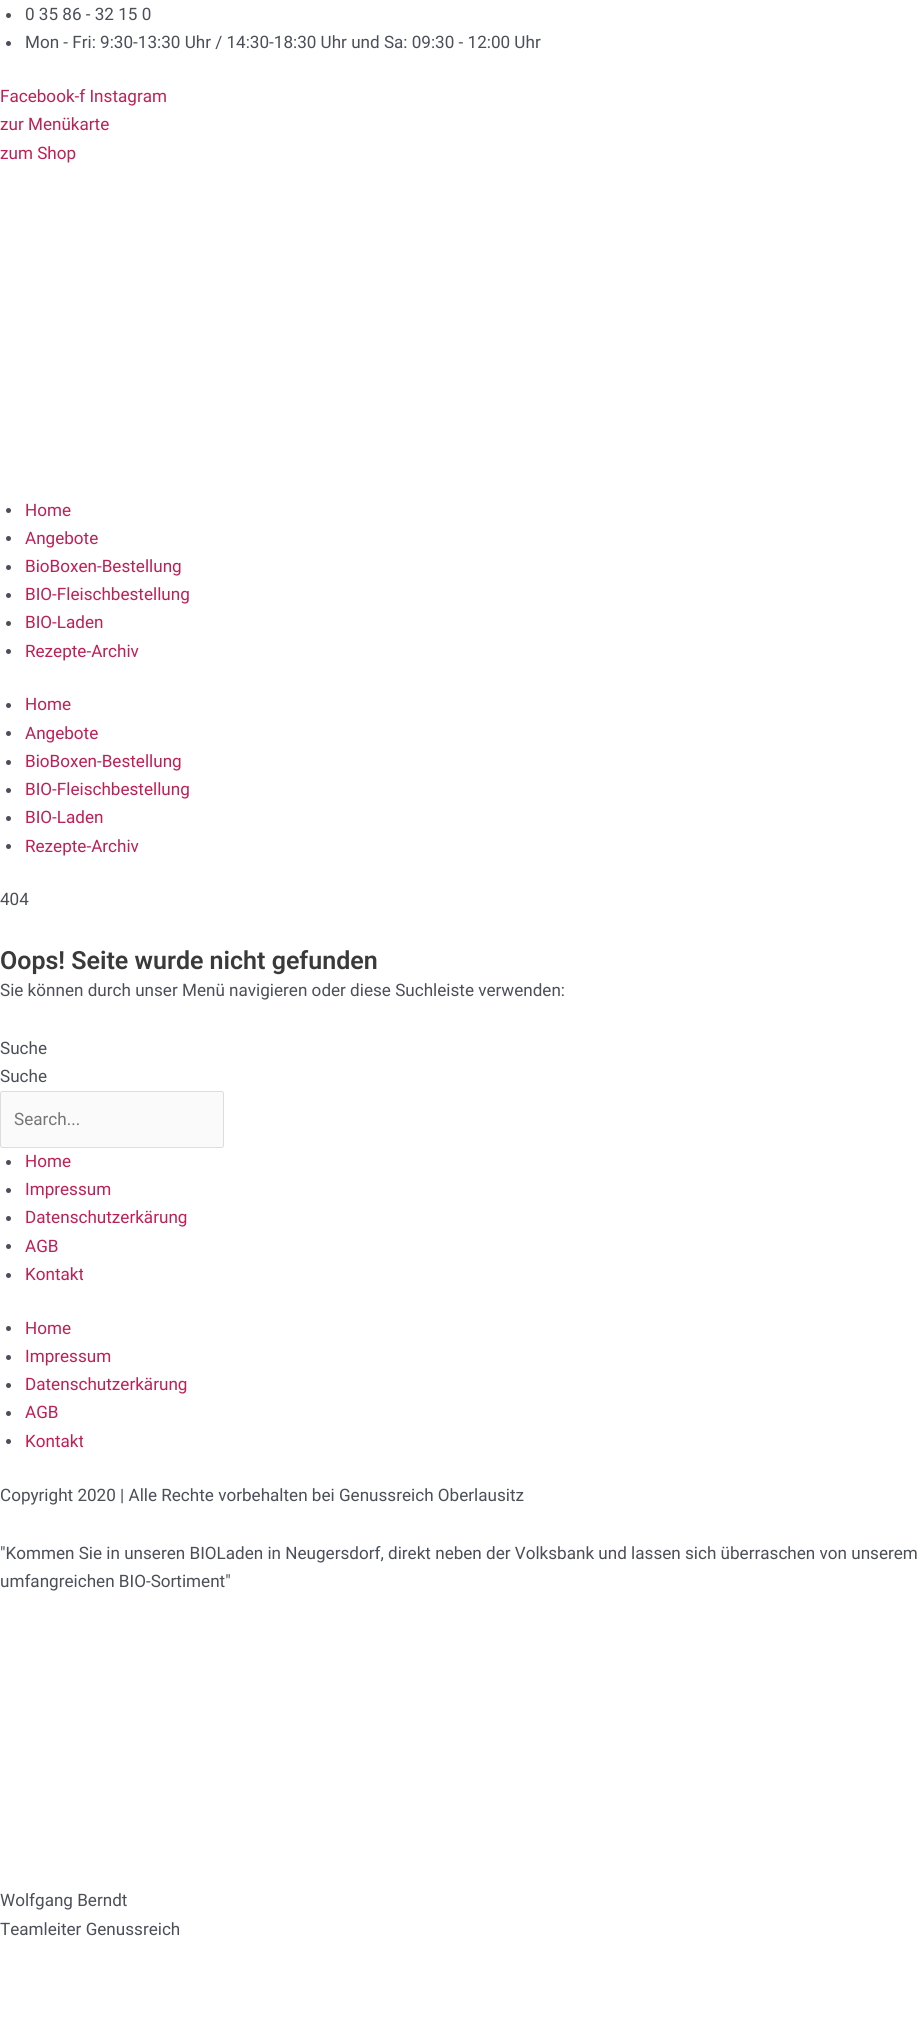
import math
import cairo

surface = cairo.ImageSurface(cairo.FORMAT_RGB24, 920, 2028)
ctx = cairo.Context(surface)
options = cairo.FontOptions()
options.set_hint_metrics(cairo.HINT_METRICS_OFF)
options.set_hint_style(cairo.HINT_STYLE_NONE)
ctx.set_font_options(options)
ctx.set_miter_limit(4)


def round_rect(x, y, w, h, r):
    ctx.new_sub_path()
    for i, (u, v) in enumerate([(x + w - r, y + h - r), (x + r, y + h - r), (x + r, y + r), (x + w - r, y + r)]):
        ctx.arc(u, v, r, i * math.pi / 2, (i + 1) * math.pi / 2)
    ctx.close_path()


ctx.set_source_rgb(1, 1, 1)
ctx.paint()
ctx.set_source_rgb(0.294, 0.31, 0.345)
ctx.arc(8.5, 15.5, 2.5, 0, 2 * math.pi)
ctx.fill()
ctx.select_font_face("Roboto")
ctx.set_font_size(17.1)
ctx.move_to(25, 20)
ctx.show_text("0 35 86 - 32 15 0")
ctx.new_path()
ctx.arc(8.5, 43.5, 2.5, 0, 2 * math.pi)
ctx.fill()
ctx.move_to(25, 48)
ctx.show_text("Mon - Fri: 9:30-13:30 Uhr / 14:30-18:30 Uhr und Sa: 09:30 - 12:00 Uhr")
ctx.set_source_rgb(0.741, 0.125, 0.333)
ctx.move_to(0, 102)
ctx.show_text("Facebook-f Instagram")
ctx.move_to(0, 130)
ctx.show_text("zur Menükarte")
ctx.move_to(0, 159)
ctx.show_text("zum Shop")
ctx.set_source_rgb(0.294, 0.31, 0.345)
ctx.new_path()
ctx.arc(8.5, 510.5, 2.5, 0, 2 * math.pi)
ctx.fill()
ctx.set_source_rgb(0.741, 0.125, 0.333)
ctx.move_to(25, 516)
ctx.show_text("Home")
ctx.set_source_rgb(0.294, 0.31, 0.345)
ctx.new_path()
ctx.arc(8.5, 538.5, 2.5, 0, 2 * math.pi)
ctx.fill()
ctx.set_source_rgb(0.741, 0.125, 0.333)
ctx.move_to(25, 544)
ctx.show_text("Angebote")
ctx.set_source_rgb(0.294, 0.31, 0.345)
ctx.new_path()
ctx.arc(8.5, 567.5, 2.5, 0, 2 * math.pi)
ctx.fill()
ctx.set_source_rgb(0.741, 0.125, 0.333)
ctx.move_to(25, 572)
ctx.show_text("BioBoxen-Bestellung")
ctx.set_source_rgb(0.294, 0.31, 0.345)
ctx.new_path()
ctx.arc(8.5, 595.5, 2.5, 0, 2 * math.pi)
ctx.fill()
ctx.set_source_rgb(0.741, 0.125, 0.333)
ctx.move_to(25, 600)
ctx.show_text("BIO-Fleischbestellung")
ctx.set_source_rgb(0.294, 0.31, 0.345)
ctx.new_path()
ctx.arc(8.5, 623.5, 2.5, 0, 2 * math.pi)
ctx.fill()
ctx.set_source_rgb(0.741, 0.125, 0.333)
ctx.move_to(25, 628)
ctx.show_text("BIO-Laden")
ctx.set_source_rgb(0.294, 0.31, 0.345)
ctx.new_path()
ctx.arc(8.5, 651.5, 2.5, 0, 2 * math.pi)
ctx.fill()
ctx.set_source_rgb(0.741, 0.125, 0.333)
ctx.move_to(25, 657)
ctx.show_text("Rezepte-Archiv")
ctx.set_source_rgb(0.294, 0.31, 0.345)
ctx.new_path()
ctx.arc(8.5, 705.5, 2.5, 0, 2 * math.pi)
ctx.fill()
ctx.set_source_rgb(0.741, 0.125, 0.333)
ctx.move_to(25, 710)
ctx.show_text("Home")
ctx.set_source_rgb(0.294, 0.31, 0.345)
ctx.new_path()
ctx.arc(8.5, 733.5, 2.5, 0, 2 * math.pi)
ctx.fill()
ctx.set_source_rgb(0.741, 0.125, 0.333)
ctx.move_to(25, 739)
ctx.show_text("Angebote")
ctx.set_source_rgb(0.294, 0.31, 0.345)
ctx.new_path()
ctx.arc(8.5, 762.5, 2.5, 0, 2 * math.pi)
ctx.fill()
ctx.set_source_rgb(0.741, 0.125, 0.333)
ctx.move_to(25, 767)
ctx.show_text("BioBoxen-Bestellung")
ctx.set_source_rgb(0.294, 0.31, 0.345)
ctx.new_path()
ctx.arc(8.5, 790.5, 2.5, 0, 2 * math.pi)
ctx.fill()
ctx.set_source_rgb(0.741, 0.125, 0.333)
ctx.move_to(25, 795)
ctx.show_text("BIO-Fleischbestellung")
ctx.set_source_rgb(0.294, 0.31, 0.345)
ctx.new_path()
ctx.arc(8.5, 818.5, 2.5, 0, 2 * math.pi)
ctx.fill()
ctx.set_source_rgb(0.741, 0.125, 0.333)
ctx.move_to(25, 823)
ctx.show_text("BIO-Laden")
ctx.set_source_rgb(0.294, 0.31, 0.345)
ctx.new_path()
ctx.arc(8.5, 846.5, 2.5, 0, 2 * math.pi)
ctx.fill()
ctx.set_source_rgb(0.741, 0.125, 0.333)
ctx.move_to(25, 852)
ctx.show_text("Rezepte-Archiv")
ctx.set_source_rgb(0.294, 0.31, 0.345)
ctx.move_to(0, 905)
ctx.show_text("404")
ctx.select_font_face("Roboto SemiBold")
ctx.set_font_size(25)
ctx.set_source_rgb(0.227, 0.227, 0.227)
ctx.move_to(0, 969)
ctx.show_text("Oops! Seite wurde nicht gefunden")
ctx.select_font_face("Roboto")
ctx.set_font_size(17.1)
ctx.set_source_rgb(0.294, 0.31, 0.345)
ctx.move_to(0, 996)
ctx.show_text("Sie können durch unser Menü navigieren oder diese Suchleiste verwenden:")
ctx.move_to(0, 1054)
ctx.show_text("Suche")
ctx.move_to(0, 1082)
ctx.show_text("Suche")
ctx.set_source_rgb(0.98, 0.98, 0.98)
round_rect(0.5, 1091.5, 223, 56, 2)
ctx.fill_preserve()
ctx.set_source_rgb(0.867, 0.867, 0.867)
ctx.set_line_width(1)
ctx.stroke()
ctx.set_source_rgb(0.459, 0.459, 0.459)
ctx.move_to(14, 1125)
ctx.show_text("Search...")
ctx.set_source_rgb(0.294, 0.31, 0.345)
ctx.new_path()
ctx.arc(8.5, 1162.5, 2.5, 0, 2 * math.pi)
ctx.fill()
ctx.set_source_rgb(0.741, 0.125, 0.333)
ctx.move_to(25, 1167)
ctx.show_text("Home")
ctx.set_source_rgb(0.294, 0.31, 0.345)
ctx.new_path()
ctx.arc(8.5, 1190.5, 2.5, 0, 2 * math.pi)
ctx.fill()
ctx.set_source_rgb(0.741, 0.125, 0.333)
ctx.move_to(25, 1195)
ctx.show_text("Impressum")
ctx.set_source_rgb(0.294, 0.31, 0.345)
ctx.new_path()
ctx.arc(8.5, 1218.5, 2.5, 0, 2 * math.pi)
ctx.fill()
ctx.set_source_rgb(0.741, 0.125, 0.333)
ctx.move_to(25, 1223)
ctx.show_text("Datenschutzerkärung")
ctx.set_source_rgb(0.294, 0.31, 0.345)
ctx.new_path()
ctx.arc(8.5, 1246.5, 2.5, 0, 2 * math.pi)
ctx.fill()
ctx.set_source_rgb(0.741, 0.125, 0.333)
ctx.move_to(25, 1252)
ctx.show_text("AGB")
ctx.set_source_rgb(0.294, 0.31, 0.345)
ctx.new_path()
ctx.arc(8.5, 1275.5, 2.5, 0, 2 * math.pi)
ctx.fill()
ctx.set_source_rgb(0.741, 0.125, 0.333)
ctx.move_to(25, 1280)
ctx.show_text("Kontakt")
ctx.set_source_rgb(0.294, 0.31, 0.345)
ctx.new_path()
ctx.arc(8.5, 1328.5, 2.5, 0, 2 * math.pi)
ctx.fill()
ctx.set_source_rgb(0.741, 0.125, 0.333)
ctx.move_to(25, 1334)
ctx.show_text("Home")
ctx.set_source_rgb(0.294, 0.31, 0.345)
ctx.new_path()
ctx.arc(8.5, 1357.5, 2.5, 0, 2 * math.pi)
ctx.fill()
ctx.set_source_rgb(0.741, 0.125, 0.333)
ctx.move_to(25, 1362)
ctx.show_text("Impressum")
ctx.set_source_rgb(0.294, 0.31, 0.345)
ctx.new_path()
ctx.arc(8.5, 1385.5, 2.5, 0, 2 * math.pi)
ctx.fill()
ctx.set_source_rgb(0.741, 0.125, 0.333)
ctx.move_to(25, 1390)
ctx.show_text("Datenschutzerkärung")
ctx.set_source_rgb(0.294, 0.31, 0.345)
ctx.new_path()
ctx.arc(8.5, 1413.5, 2.5, 0, 2 * math.pi)
ctx.fill()
ctx.set_source_rgb(0.741, 0.125, 0.333)
ctx.move_to(25, 1418)
ctx.show_text("AGB")
ctx.set_source_rgb(0.294, 0.31, 0.345)
ctx.new_path()
ctx.arc(8.5, 1441.5, 2.5, 0, 2 * math.pi)
ctx.fill()
ctx.set_source_rgb(0.741, 0.125, 0.333)
ctx.move_to(25, 1447)
ctx.show_text("Kontakt")
ctx.set_source_rgb(0.294, 0.31, 0.345)
ctx.move_to(0, 1501)
ctx.show_text("Copyright 2020 | Alle Rechte vorbehalten bei Genussreich Oberlausitz")
ctx.move_to(0, 1559)
ctx.show_text("\"Kommen Sie in unseren BIOLaden in Neugersdorf, direkt neben der Volksbank und lassen sich überraschen von unserem")
ctx.move_to(0, 1587)
ctx.show_text("umfangreichen BIO-Sortiment\"")
ctx.move_to(0, 1906)
ctx.show_text("Wolfgang Berndt")
ctx.move_to(0, 1935)
ctx.show_text("Teamleiter Genussreich")
surface.write_to_png("page.png")
